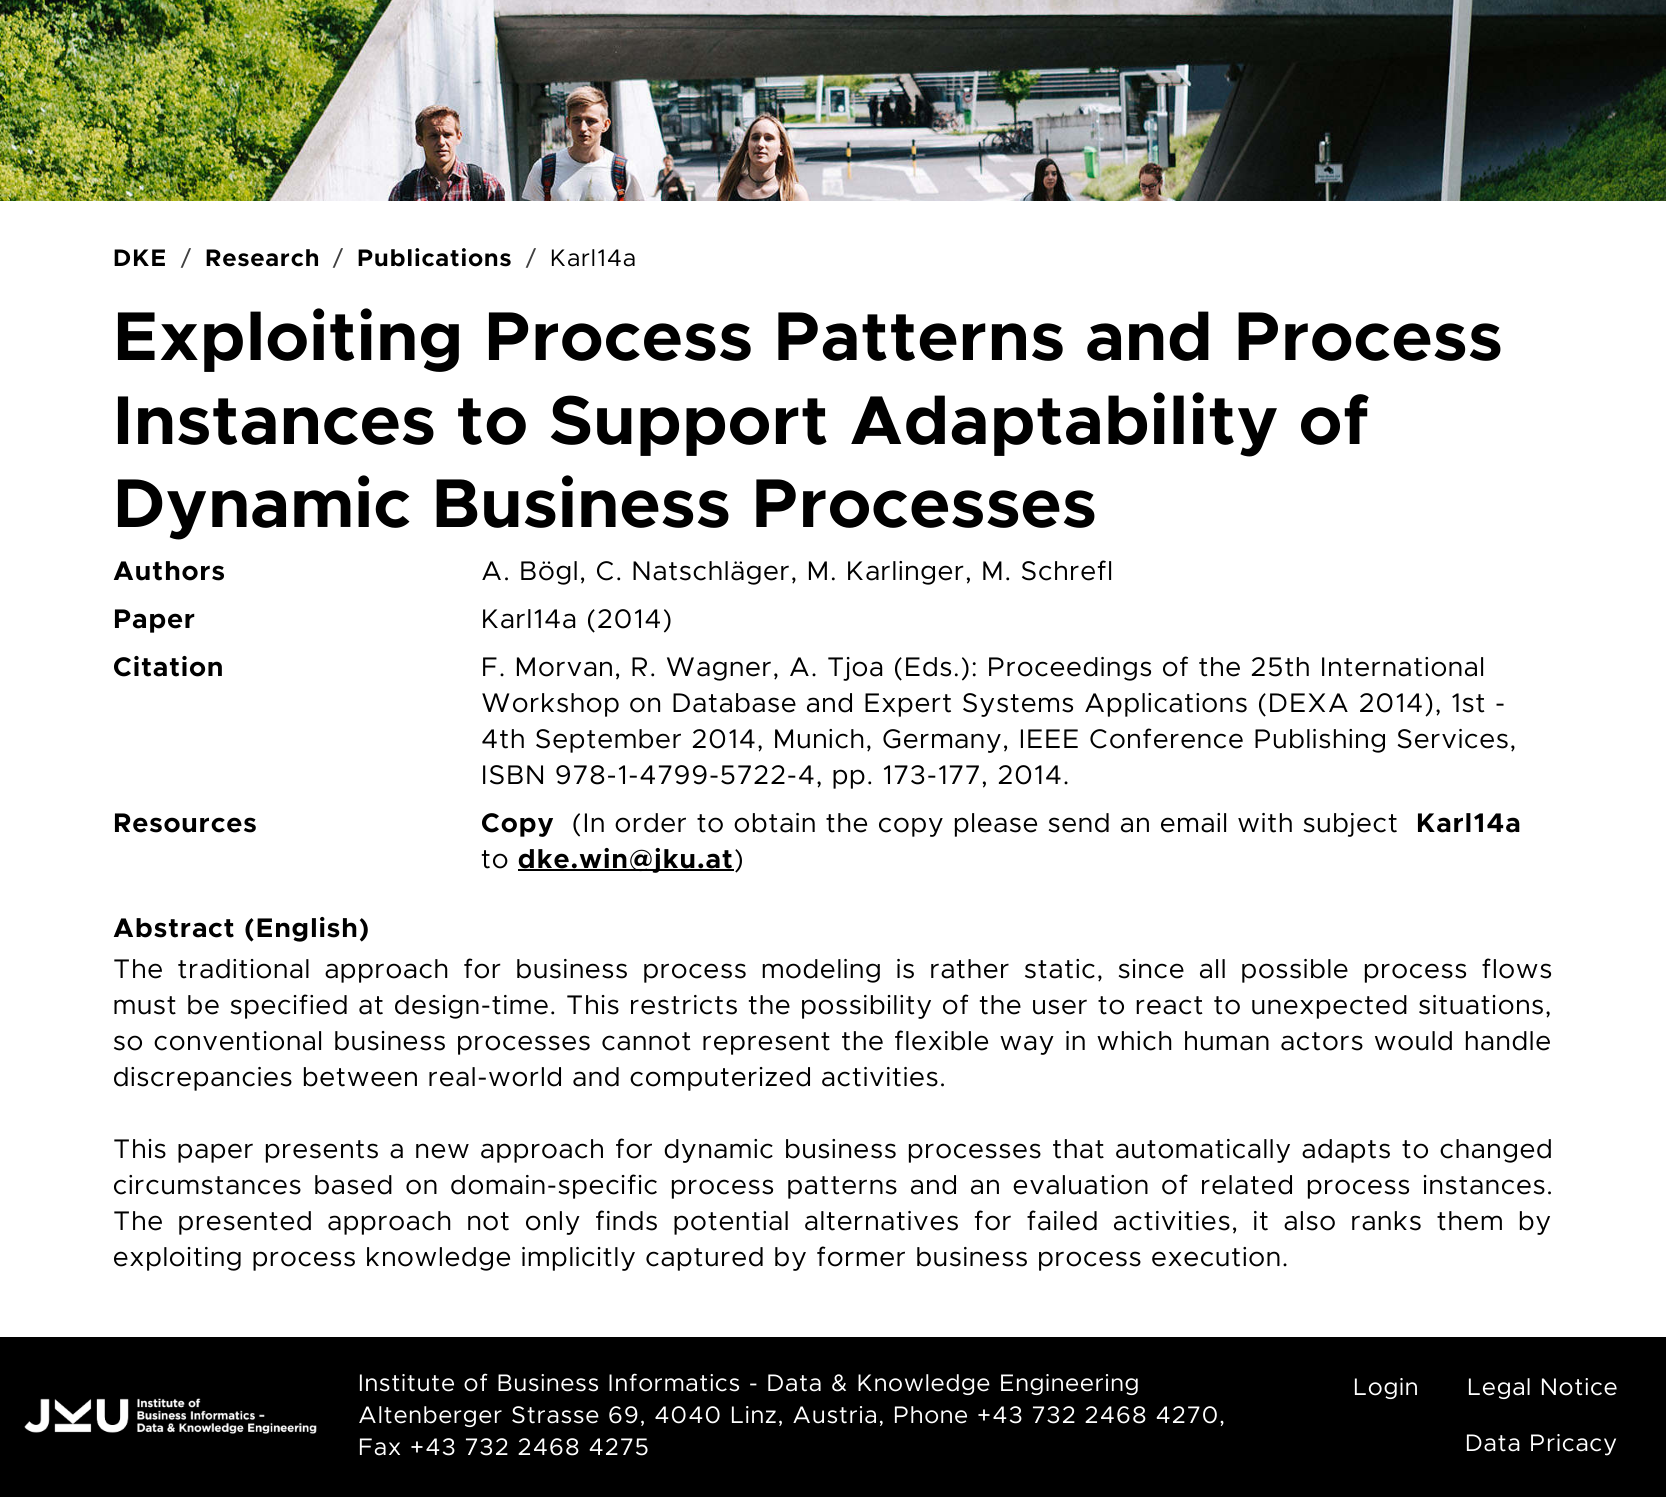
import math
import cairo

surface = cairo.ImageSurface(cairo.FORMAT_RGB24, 1666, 1497)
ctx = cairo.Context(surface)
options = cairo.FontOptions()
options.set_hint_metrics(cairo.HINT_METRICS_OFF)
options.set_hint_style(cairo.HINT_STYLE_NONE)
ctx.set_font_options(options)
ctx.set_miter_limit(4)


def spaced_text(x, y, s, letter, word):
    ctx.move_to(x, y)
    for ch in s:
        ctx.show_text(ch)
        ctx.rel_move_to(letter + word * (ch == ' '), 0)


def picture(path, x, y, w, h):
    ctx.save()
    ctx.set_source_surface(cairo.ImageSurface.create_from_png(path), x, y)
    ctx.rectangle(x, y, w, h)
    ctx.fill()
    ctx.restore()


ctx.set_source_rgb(1, 1, 1)
ctx.paint()
picture("img1.png", 0, 0, 1666, 201)
ctx.select_font_face("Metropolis", cairo.FONT_SLANT_NORMAL, cairo.FONT_WEIGHT_BOLD)
ctx.set_font_size(24)
ctx.set_source_rgb(0, 0, 0)
spaced_text(113, 266, "DKE", 1.2, 0)
ctx.select_font_face("Metropolis")
ctx.set_source_rgb(0.251, 0.251, 0.251)
spaced_text(180, 266, "/", 1.2, 0)
ctx.select_font_face("Metropolis", cairo.FONT_SLANT_NORMAL, cairo.FONT_WEIGHT_BOLD)
ctx.set_source_rgb(0, 0, 0)
spaced_text(205, 266, "Research", 1.2, 0)
ctx.select_font_face("Metropolis")
ctx.set_source_rgb(0.251, 0.251, 0.251)
spaced_text(332, 266, "/", 1.2, 0)
ctx.select_font_face("Metropolis", cairo.FONT_SLANT_NORMAL, cairo.FONT_WEIGHT_BOLD)
ctx.set_source_rgb(0, 0, 0)
spaced_text(357, 266, "Publications", 1.2, 0)
ctx.select_font_face("Metropolis")
ctx.set_source_rgb(0.251, 0.251, 0.251)
spaced_text(525, 266, "/", 1.2, 0)
ctx.set_source_rgb(0, 0, 0)
spaced_text(550, 266, "Karl14a", 1.2, 0)
ctx.select_font_face("Metropolis", cairo.FONT_SLANT_NORMAL, cairo.FONT_WEIGHT_BOLD)
ctx.set_font_size(69.2)
spaced_text(113, 360, "Exploiting Process Patterns and Process", 1.2, 0)
spaced_text(113, 444, "Instances to Support Adaptability of", 1.2, 0)
spaced_text(113, 527, "Dynamic Business Processes", 1.2, 0)
ctx.set_font_size(27)
spaced_text(113, 580, "Authors", 1.2, 0)
ctx.select_font_face("Metropolis")
spaced_text(481, 580, "A. Bögl, C. Natschläger, M. Karlinger, M. Schrefl", 1.2, 0)
ctx.select_font_face("Metropolis", cairo.FONT_SLANT_NORMAL, cairo.FONT_WEIGHT_BOLD)
spaced_text(113, 628, "Paper", 1.2, 0)
ctx.select_font_face("Metropolis")
spaced_text(481, 628, "Karl14a (2014)", 1.2, 0)
ctx.select_font_face("Metropolis", cairo.FONT_SLANT_NORMAL, cairo.FONT_WEIGHT_BOLD)
spaced_text(113, 676, "Citation", 1.2, 0)
ctx.select_font_face("Metropolis")
spaced_text(481, 676, "F. Morvan, R. Wagner, A. Tjoa (Eds.): Proceedings of the 25th International", 1.2, 0)
spaced_text(481, 712, "Workshop on Database and Expert Systems Applications (DEXA 2014), 1st -", 1.2, 0)
spaced_text(481, 748, "4th September 2014, Munich, Germany, IEEE Conference Publishing Services,", 1.2, 0)
spaced_text(481, 784, "ISBN 978-1-4799-5722-4, pp. 173-177, 2014.", 1.2, 0)
ctx.select_font_face("Metropolis", cairo.FONT_SLANT_NORMAL, cairo.FONT_WEIGHT_BOLD)
spaced_text(113, 832, "Resources", 1.2, 0)
spaced_text(481, 832, "Copy", 1.2, 0)
ctx.select_font_face("Metropolis")
spaced_text(572, 832, "(In order to obtain the copy please send an email with subject", 1.2, 0)
ctx.select_font_face("Metropolis", cairo.FONT_SLANT_NORMAL, cairo.FONT_WEIGHT_BOLD)
spaced_text(1416, 832, "Karl14a", 1.2, 0)
ctx.select_font_face("Metropolis")
spaced_text(481, 868, "to", 1.2, 0)
ctx.rectangle(518, 869, 216, 2)
ctx.fill()
ctx.select_font_face("Metropolis", cairo.FONT_SLANT_NORMAL, cairo.FONT_WEIGHT_BOLD)
spaced_text(518, 868, "dke.win@jku.at", 1.2, 0)
ctx.select_font_face("Metropolis")
spaced_text(734, 868, ")", 1.2, 0)
ctx.select_font_face("Metropolis", cairo.FONT_SLANT_NORMAL, cairo.FONT_WEIGHT_BOLD)
spaced_text(113, 937, "Abstract (English)", 1.2, 0)
ctx.select_font_face("Metropolis")
spaced_text(113, 978, "The traditional approach for business process modeling is rather static, since all possible process flows", 1.2, 4.9)
spaced_text(113, 1014, "must be specified at design-time. This restricts the possibility of the user to react to unexpected situations,", 1.2, 0.4)
spaced_text(113, 1050, "so conventional business processes cannot represent the flexible way in which human actors would handle", 1.2, 1)
spaced_text(113, 1086, "discrepancies between real-world and computerized activities.", 1.2, 0)
spaced_text(113, 1158, "This paper presents a new approach for dynamic business processes that automatically adapts to changed", 1.2, 1)
spaced_text(113, 1194, "circumstances based on domain-specific process patterns and an evaluation of related process instances.", 1.2, 2.75)
spaced_text(113, 1230, "The presented approach not only finds potential alternatives for failed activities, it also ranks them by", 1.2, 5.25)
spaced_text(113, 1266, "exploiting process knowledge implicitly captured by former business process execution.", 1.2, 0)
ctx.rectangle(0, 1337, 1666, 160)
ctx.fill()
picture("img2.png", 24, 1398, 293, 36)
ctx.set_font_size(24)
ctx.set_source_rgb(1, 1, 1)
spaced_text(358, 1391, "Institute of Business Informatics - Data & Knowledge Engineering", 1.2, 0)
spaced_text(358, 1423, "Altenberger Strasse 69, 4040 Linz, Austria, Phone +43 732 2468 4270,", 1.2, 0)
spaced_text(358, 1455, "Fax +43 732 2468 4275", 1.2, 0)
spaced_text(1353, 1395, "Login", 1.2, 0)
spaced_text(1467, 1395, "Legal Notice", 1.2, 0)
spaced_text(1465, 1451, "Data Pricacy", 1.2, 0)
surface.write_to_png("page.png")
